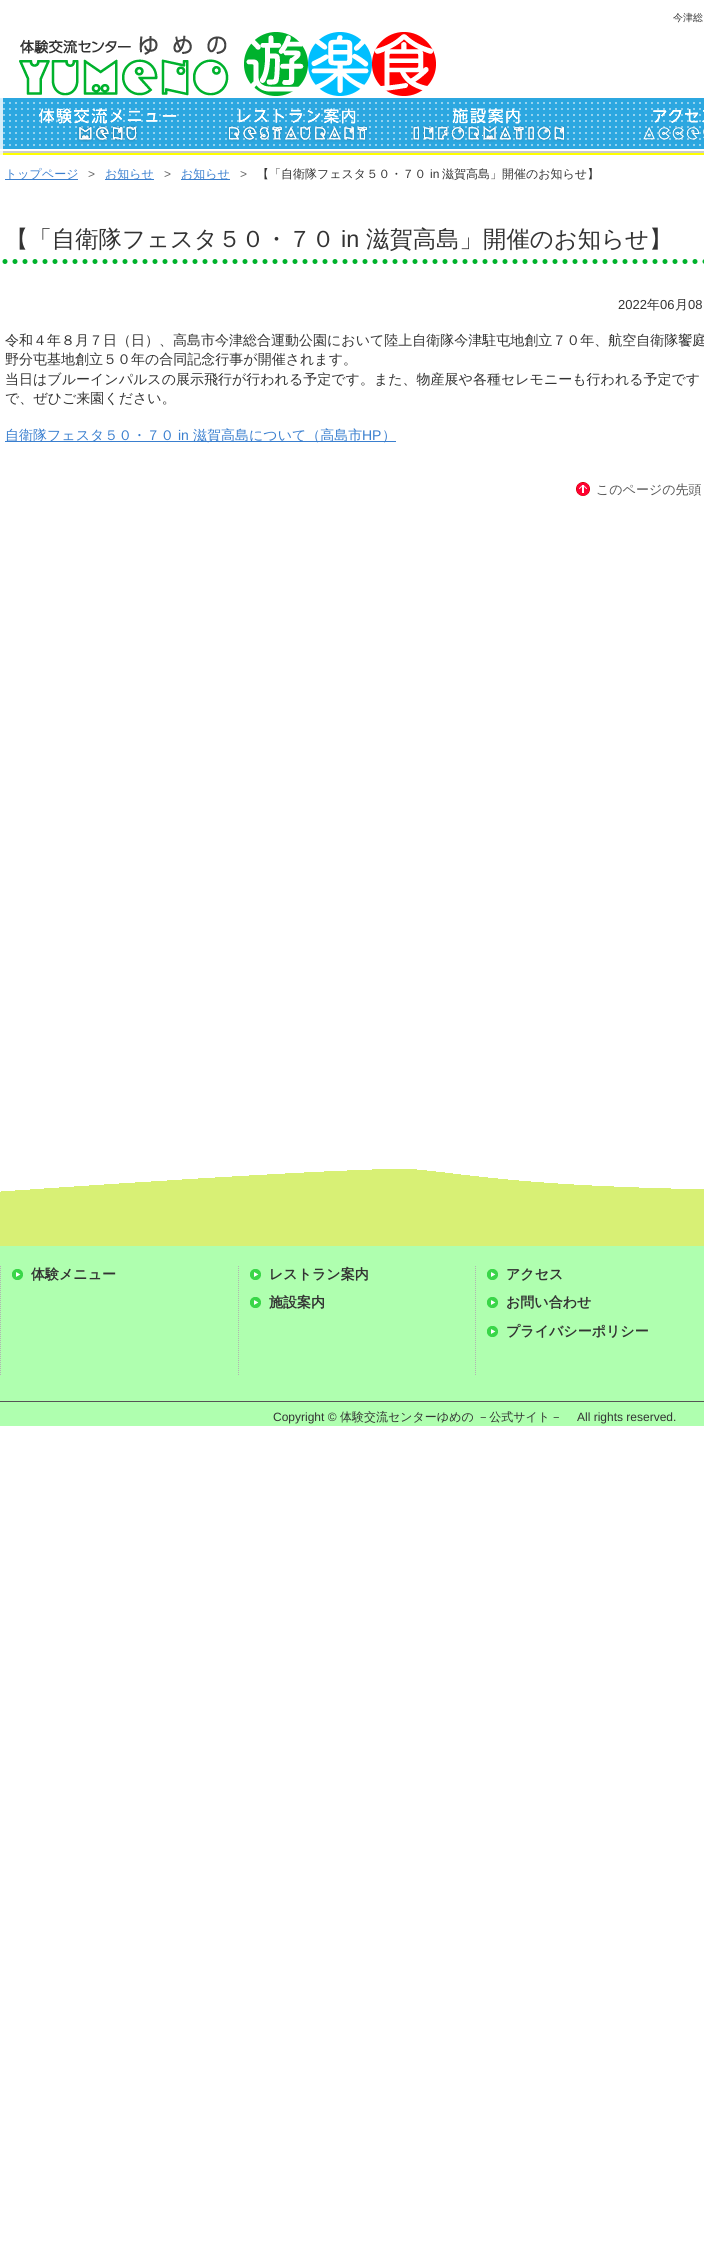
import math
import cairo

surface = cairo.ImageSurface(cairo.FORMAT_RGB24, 704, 2266)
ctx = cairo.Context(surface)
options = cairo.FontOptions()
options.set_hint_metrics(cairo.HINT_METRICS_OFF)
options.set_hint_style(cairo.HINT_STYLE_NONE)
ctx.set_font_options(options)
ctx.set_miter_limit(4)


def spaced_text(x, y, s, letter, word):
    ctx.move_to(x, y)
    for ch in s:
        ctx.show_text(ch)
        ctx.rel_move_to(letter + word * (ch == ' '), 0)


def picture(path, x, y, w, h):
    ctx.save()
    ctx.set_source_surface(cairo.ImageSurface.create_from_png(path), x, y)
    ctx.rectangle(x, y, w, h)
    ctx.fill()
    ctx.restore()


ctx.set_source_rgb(1, 1, 1)
ctx.paint()
picture("img1.png", 0, 98, 3, 57)
ctx.select_font_face("WenQuanYi Zen Hei Medium")
ctx.set_font_size(10)
ctx.set_source_rgb(0.2, 0.2, 0.2)
ctx.move_to(673, 21)
ctx.show_text("今津総")
picture("img2.png", 19, 32, 417, 64)
picture("img3.png", 3, 98, 194, 57)
picture("img4.png", 197, 98, 190, 57)
picture("img5.png", 387, 98, 190, 57)
picture("img6.png", 577, 98, 127, 57)
ctx.set_source_rgb(0.227, 0.498, 0.812)
ctx.rectangle(5, 179, 73, 1)
ctx.fill()
ctx.set_font_size(12)
ctx.move_to(5, 178)
ctx.show_text("トップページ")
ctx.select_font_face("Liberation Sans")
ctx.set_source_rgb(0.4, 0.4, 0.4)
spaced_text(88, 178, ">", 10, 0)
ctx.set_source_rgb(0.227, 0.498, 0.812)
ctx.rectangle(105, 179, 49, 1)
ctx.fill()
ctx.select_font_face("WenQuanYi Zen Hei Medium")
ctx.move_to(105, 178)
ctx.show_text("お知らせ")
ctx.select_font_face("Liberation Sans")
ctx.set_source_rgb(0.4, 0.4, 0.4)
spaced_text(164, 178, ">", 10, 0)
ctx.set_source_rgb(0.227, 0.498, 0.812)
ctx.rectangle(181, 179, 49, 1)
ctx.fill()
ctx.select_font_face("WenQuanYi Zen Hei Medium")
ctx.move_to(181, 178)
ctx.show_text("お知らせ")
ctx.select_font_face("Liberation Sans")
ctx.set_source_rgb(0.4, 0.4, 0.4)
spaced_text(240, 178, ">", 10, 0)
ctx.select_font_face("WenQuanYi Zen Hei Medium")
ctx.set_source_rgb(0.2, 0.2, 0.2)
ctx.move_to(257, 178)
ctx.show_text("【「自衛隊フェスタ５０・７０")
ctx.select_font_face("Liberation Sans")
ctx.move_to(430, 178)
ctx.show_text("in")
ctx.select_font_face("WenQuanYi Zen Hei Medium")
ctx.move_to(442, 178)
ctx.show_text("滋賀高島」開催のお知らせ】")
ctx.new_path()
ctx.move_to(5, 261.5)
ctx.line_to(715, 261.5)
ctx.set_source_rgb(0, 0.698, 0.176)
ctx.set_line_width(5)
ctx.set_line_cap(cairo.LINE_CAP_ROUND)
ctx.set_dash([0, 10])
ctx.stroke()
ctx.set_font_size(23.4)
ctx.set_source_rgb(0.2, 0.2, 0.2)
ctx.move_to(5, 247)
ctx.show_text("【「自衛隊フェスタ５０・７０")
ctx.select_font_face("Liberation Sans")
ctx.move_to(341, 247)
ctx.show_text("in")
ctx.select_font_face("WenQuanYi Zen Hei Medium")
ctx.move_to(366, 247)
ctx.show_text("滋賀高島」開催のお知らせ】")
ctx.select_font_face("Liberation Sans")
ctx.set_font_size(13)
ctx.move_to(618, 309)
ctx.show_text("2022")
ctx.select_font_face("WenQuanYi Zen Hei Medium")
ctx.move_to(647, 309)
ctx.show_text("年")
ctx.select_font_face("Liberation Sans")
ctx.move_to(660, 309)
ctx.show_text("06")
ctx.select_font_face("WenQuanYi Zen Hei Medium")
ctx.move_to(675, 309)
ctx.show_text("月")
ctx.select_font_face("Liberation Sans")
ctx.move_to(688, 309)
ctx.show_text("08")
ctx.select_font_face("WenQuanYi Zen Hei Medium")
ctx.set_font_size(14)
ctx.move_to(5, 345)
ctx.show_text("令和４年８月７日（日）、高島市今津総合運動公園において陸上自衛隊今津駐屯地創立７０年、航空自衛隊饗庭")
ctx.move_to(5, 364)
ctx.show_text("野分屯基地創立５０年の合同記念行事が開催されます。")
ctx.move_to(5, 384)
ctx.show_text("当日はブルーインパルスの展示飛行が行われる予定です。また、物産展や各種セレモニーも行われる予定です")
ctx.move_to(5, 403)
ctx.show_text("で、ぜひご来園ください。")
ctx.set_source_rgb(0.227, 0.498, 0.812)
ctx.rectangle(5, 441, 391, 1)
ctx.fill()
ctx.move_to(5, 440)
ctx.show_text("自衛隊フェスタ５０・７０")
ctx.select_font_face("Liberation Sans")
ctx.move_to(178, 440)
ctx.show_text("in")
ctx.select_font_face("WenQuanYi Zen Hei Medium")
ctx.move_to(193, 440)
ctx.show_text("滋賀高島について（高島市")
ctx.select_font_face("Liberation Sans")
ctx.move_to(362, 440)
ctx.show_text("HP")
ctx.select_font_face("WenQuanYi Zen Hei Medium")
ctx.move_to(382, 440)
ctx.show_text("）")
picture("img7.png", 576, 482, 14, 14)
ctx.set_font_size(13)
ctx.set_source_rgb(0.333, 0.333, 0.333)
ctx.move_to(596, 494)
ctx.show_text("このページの先頭")
picture("img8.png", 0, 1169, 704, 257)
ctx.save()
ctx.rectangle(0, 1266, 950, 110)
ctx.clip()
ctx.new_path()
ctx.move_to(0.5, 1266)
ctx.line_to(0.5, 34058)
ctx.set_source_rgb(0.698, 0.698, 0.698)
ctx.set_line_width(1)
ctx.set_line_cap(cairo.LINE_CAP_BUTT)
ctx.set_dash([1, 1])
ctx.stroke()
ctx.restore()
picture("img9.png", 12, 1269, 11, 11)
ctx.select_font_face("WenQuanYi Zen Hei", cairo.FONT_SLANT_NORMAL, cairo.FONT_WEIGHT_BOLD)
ctx.set_font_size(14)
ctx.set_source_rgb(0.2, 0.2, 0.2)
ctx.move_to(31, 1279)
ctx.show_text("体験メニュー")
ctx.save()
ctx.rectangle(0, 1266, 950, 110)
ctx.clip()
ctx.new_path()
ctx.move_to(238.5, 1266)
ctx.line_to(238.5, 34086)
ctx.set_source_rgb(0.698, 0.698, 0.698)
ctx.set_line_width(1)
ctx.set_line_cap(cairo.LINE_CAP_BUTT)
ctx.set_dash([1, 1])
ctx.stroke()
ctx.restore()
picture("img9.png", 250, 1269, 11, 11)
ctx.move_to(269, 1279)
ctx.show_text("レストラン案内")
picture("img9.png", 250, 1297, 11, 11)
ctx.move_to(269, 1307)
ctx.show_text("施設案内")
ctx.save()
ctx.rectangle(0, 1266, 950, 110)
ctx.clip()
ctx.new_path()
ctx.move_to(475.5, 1266)
ctx.line_to(475.5, 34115)
ctx.set_source_rgb(0.698, 0.698, 0.698)
ctx.set_line_width(1)
ctx.set_line_cap(cairo.LINE_CAP_BUTT)
ctx.set_dash([1, 1])
ctx.stroke()
ctx.restore()
picture("img9.png", 487, 1269, 11, 11)
ctx.move_to(506, 1279)
ctx.show_text("アクセス")
picture("img9.png", 487, 1297, 11, 11)
ctx.move_to(506, 1307)
ctx.show_text("お問い合わせ")
picture("img9.png", 487, 1326, 11, 11)
ctx.move_to(506, 1336)
ctx.show_text("プライバシーポリシー")
ctx.set_source_rgb(0.333, 0.333, 0.333)
ctx.rectangle(0, 1401, 704, 1)
ctx.fill()
ctx.select_font_face("Liberation Sans")
ctx.set_font_size(12)
ctx.set_source_rgb(0.2, 0.2, 0.2)
ctx.move_to(273, 1421)
ctx.show_text("Copyright ©")
ctx.select_font_face("WenQuanYi Zen Hei Medium")
ctx.move_to(340, 1421)
ctx.show_text("体験交流センターゆめの －公式サイト－")
ctx.select_font_face("Liberation Sans")
ctx.move_to(577, 1421)
ctx.show_text("All rights reserved.")
surface.write_to_png("page.png")
